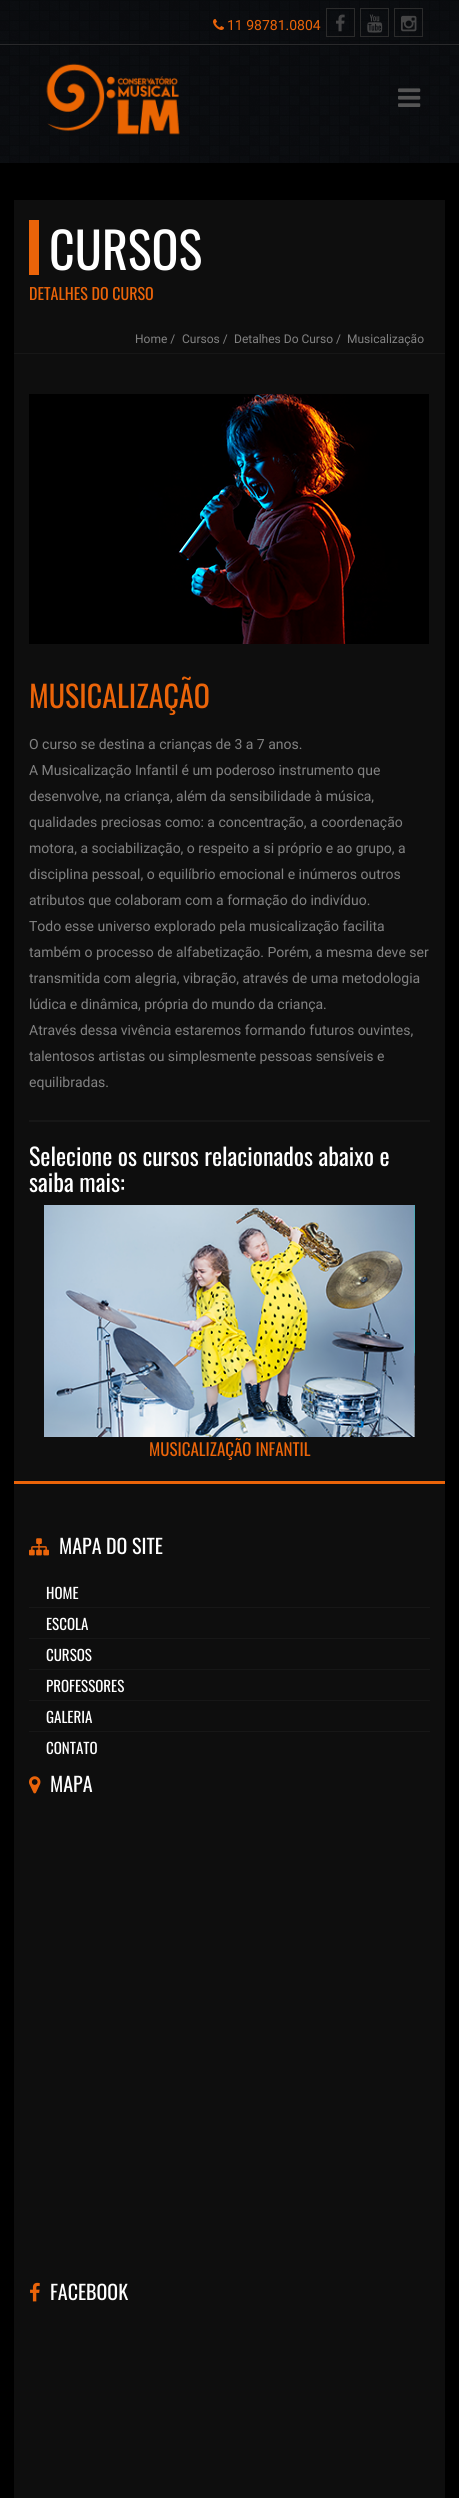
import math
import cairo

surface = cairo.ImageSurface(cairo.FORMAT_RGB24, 459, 2498)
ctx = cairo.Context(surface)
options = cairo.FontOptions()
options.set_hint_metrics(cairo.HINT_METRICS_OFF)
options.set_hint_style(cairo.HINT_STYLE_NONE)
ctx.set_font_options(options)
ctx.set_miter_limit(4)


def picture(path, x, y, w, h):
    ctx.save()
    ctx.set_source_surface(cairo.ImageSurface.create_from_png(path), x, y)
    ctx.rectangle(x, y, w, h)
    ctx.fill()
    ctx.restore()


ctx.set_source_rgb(0, 0, 0)
ctx.paint()
ctx.set_source_rgb(0.161, 0.161, 0.169)
ctx.rectangle(0, 0, 459, 163)
ctx.fill()
picture("img1.png", 0, 0, 459, 44)
picture("img2.png", 213, 19, 11, 11)
ctx.select_font_face("Roboto")
ctx.set_font_size(14)
ctx.set_source_rgb(0.918, 0.392, 0.039)
ctx.move_to(227, 30)
ctx.show_text("11 98781.0804")
ctx.rectangle(326.5, 8.5, 28, 28)
ctx.set_source_rgb(0.169, 0.169, 0.169)
ctx.set_line_width(1)
ctx.stroke()
picture("img3.png", 336, 14, 9, 18)
ctx.rectangle(360.5, 8.5, 28, 28)
ctx.stroke()
picture("img4.png", 367, 14, 16, 19)
ctx.rectangle(394.5, 8.5, 28, 28)
ctx.stroke()
picture("img5.png", 401, 15, 16, 17)
picture("img6.png", 0, 45, 459, 118)
picture("img7.png", 46, 63, 134, 72)
picture("img8.png", 398, 88, 23, 19)
ctx.set_source_rgb(0.055, 0.055, 0.055)
ctx.rectangle(14, 200, 431, 153)
ctx.fill()
ctx.set_source_rgb(0.09, 0.09, 0.09)
ctx.rectangle(14, 353, 431, 1)
ctx.fill()
ctx.set_source_rgb(0.918, 0.392, 0.039)
ctx.rectangle(29, 220, 10, 55)
ctx.fill()
ctx.select_font_face("Oswald")
ctx.set_font_size(50)
ctx.set_source_rgb(1, 1, 1)
ctx.move_to(49, 270)
ctx.show_text("CURSOS")
ctx.set_font_size(16)
ctx.set_source_rgb(0.918, 0.392, 0.039)
ctx.move_to(29, 300)
ctx.show_text("DETALHES DO CURSO")
ctx.select_font_face("Roboto")
ctx.set_font_size(12)
ctx.set_source_rgb(0.51, 0.51, 0.51)
ctx.move_to(135, 343)
ctx.show_text("Home /")
ctx.move_to(182, 343)
ctx.show_text("Cursos /")
ctx.move_to(234, 343)
ctx.show_text("Detalhes Do Curso /")
ctx.move_to(347, 343)
ctx.show_text("Musicalização")
ctx.set_source_rgb(0.055, 0.055, 0.055)
ctx.rectangle(14, 354, 431, 1127)
ctx.fill()
picture("img9.png", 29, 394, 400, 250)
ctx.set_source_rgb(0.09, 0.09, 0.09)
ctx.rectangle(29, 1120, 401, 2)
ctx.fill()
ctx.select_font_face("Oswald")
ctx.set_font_size(30)
ctx.set_source_rgb(0.918, 0.392, 0.039)
ctx.move_to(29, 708)
ctx.show_text("MUSICALIZAÇÃO")
ctx.select_font_face("Roboto")
ctx.set_font_size(14)
ctx.set_source_rgb(0.51, 0.51, 0.51)
ctx.move_to(29, 749)
ctx.show_text("O curso se destina a crianças de 3 a 7 anos.")
ctx.move_to(29, 775)
ctx.show_text("A Musicalização Infantil é um poderoso instrumento que")
ctx.move_to(29, 801)
ctx.show_text("desenvolve, na criança, além da sensibilidade à música,")
ctx.move_to(29, 827)
ctx.show_text("qualidades preciosas como: a concentração, a coordenação")
ctx.move_to(29, 853)
ctx.show_text("motora, a sociabilização, o respeito a si próprio e ao grupo, a")
ctx.move_to(29, 879)
ctx.show_text("disciplina pessoal, o equilíbrio emocional e inúmeros outros")
ctx.move_to(29, 905)
ctx.show_text("atributos que colaboram com a formação do indivíduo.")
ctx.move_to(29, 931)
ctx.show_text("Todo esse universo explorado pela musicalização facilita")
ctx.move_to(29, 957)
ctx.show_text("também o processo de alfabetização. Porém, a mesma deve ser")
ctx.move_to(29, 983)
ctx.show_text("transmitida com alegria, vibração, através de uma metodologia")
ctx.move_to(29, 1009)
ctx.show_text("lúdica e dinâmica, própria do mundo da criança.")
ctx.move_to(29, 1035)
ctx.show_text("Através dessa vivência estaremos formando futuros ouvintes,")
ctx.move_to(29, 1061)
ctx.show_text("talentosos artistas ou simplesmente pessoas sensíveis e")
ctx.move_to(29, 1087)
ctx.show_text("equilibradas.")
ctx.select_font_face("Oswald")
ctx.set_font_size(24)
ctx.set_source_rgb(1, 1, 1)
ctx.move_to(29, 1166)
ctx.show_text("Selecione os cursos relacionados abaixo e")
ctx.move_to(29, 1192)
ctx.show_text("saiba mais:")
picture("img10.png", 44, 1205, 371, 232)
ctx.set_font_size(17)
ctx.set_source_rgb(0.918, 0.392, 0.039)
ctx.move_to(149, 1456)
ctx.show_text("MUSICALIZAÇÃO INFANTIL")
ctx.set_source_rgb(0.055, 0.055, 0.055)
ctx.rectangle(14, 1484, 431, 1014)
ctx.fill()
ctx.set_source_rgb(0.918, 0.392, 0.039)
ctx.rectangle(14, 1481, 431, 3)
ctx.fill()
picture("img11.png", 29, 1538, 20, 18)
ctx.set_font_size(20)
ctx.set_source_rgb(1, 1, 1)
ctx.move_to(59, 1554)
ctx.show_text("MAPA DO SITE")
ctx.set_source_rgb(0.09, 0.09, 0.09)
ctx.rectangle(29, 1607, 401, 1)
ctx.fill()
ctx.set_font_size(15)
ctx.set_source_rgb(1, 1, 1)
ctx.move_to(46, 1599)
ctx.show_text("HOME")
ctx.set_source_rgb(0.09, 0.09, 0.09)
ctx.rectangle(29, 1638, 401, 1)
ctx.fill()
ctx.set_source_rgb(1, 1, 1)
ctx.move_to(46, 1630)
ctx.show_text("ESCOLA")
ctx.set_source_rgb(0.09, 0.09, 0.09)
ctx.rectangle(29, 1669, 401, 1)
ctx.fill()
ctx.set_source_rgb(1, 1, 1)
ctx.move_to(46, 1661)
ctx.show_text("CURSOS")
ctx.set_source_rgb(0.09, 0.09, 0.09)
ctx.rectangle(29, 1700, 401, 1)
ctx.fill()
ctx.set_source_rgb(1, 1, 1)
ctx.move_to(46, 1692)
ctx.show_text("PROFESSORES")
ctx.set_source_rgb(0.09, 0.09, 0.09)
ctx.rectangle(29, 1731, 401, 1)
ctx.fill()
ctx.set_source_rgb(1, 1, 1)
ctx.move_to(46, 1723)
ctx.show_text("GALERIA")
ctx.move_to(46, 1754)
ctx.show_text("CONTATO")
picture("img12.png", 29, 1776, 12, 18)
ctx.set_font_size(20)
ctx.move_to(50, 1792)
ctx.show_text("MAPA")
picture("img13.png", 30, 2282, 10, 20)
ctx.move_to(50, 2300)
ctx.show_text("FACEBOOK")
surface.write_to_png("page.png")
